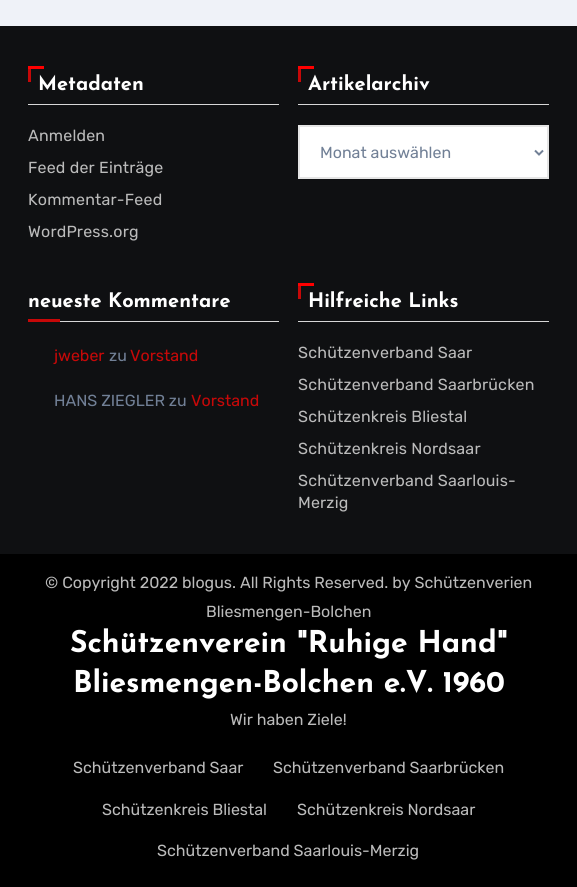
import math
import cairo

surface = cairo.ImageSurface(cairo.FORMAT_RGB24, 577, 887)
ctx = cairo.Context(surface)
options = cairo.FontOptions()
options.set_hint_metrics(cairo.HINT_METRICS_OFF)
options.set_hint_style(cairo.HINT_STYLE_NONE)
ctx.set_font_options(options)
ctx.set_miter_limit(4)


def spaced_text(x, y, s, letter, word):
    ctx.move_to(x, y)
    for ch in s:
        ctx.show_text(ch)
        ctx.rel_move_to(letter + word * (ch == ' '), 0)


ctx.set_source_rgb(0.937, 0.949, 0.969)
ctx.paint()
ctx.set_source_rgb(0.059, 0.063, 0.071)
ctx.rectangle(0, 26, 577, 528)
ctx.fill()
ctx.set_source_rgb(0.843, 0.843, 0.843)
ctx.rectangle(28, 104, 251, 1)
ctx.fill()
ctx.set_source_rgb(0.78, 0.035, 0.035)
ctx.rectangle(28, 66, 3, 16)
ctx.fill()
ctx.set_source_rgb(1, 0, 0)
ctx.rectangle(28, 66, 16, 3)
ctx.fill()
ctx.select_font_face("Josefin Sans", cairo.FONT_SLANT_NORMAL, cairo.FONT_WEIGHT_BOLD)
ctx.set_font_size(20)
ctx.set_source_rgb(1, 1, 1)
ctx.move_to(38, 90)
ctx.show_text("Metadaten")
ctx.select_font_face("Rubik Light")
ctx.set_font_size(16)
ctx.set_source_rgb(0.733, 0.733, 0.733)
spaced_text(28, 141, "Anmelden", 0.2, 0)
spaced_text(28, 173, "Feed der Einträge", 0.2, 0)
spaced_text(28, 205, "Kommentar-Feed", 0.2, 0)
spaced_text(28, 237, "WordPress.org", 0.2, 0)
ctx.set_source_rgb(0.843, 0.843, 0.843)
ctx.rectangle(298, 104, 251, 1)
ctx.fill()
ctx.set_source_rgb(0.78, 0.035, 0.035)
ctx.rectangle(298, 66, 3, 16)
ctx.fill()
ctx.set_source_rgb(1, 0, 0)
ctx.rectangle(298, 66, 16, 3)
ctx.fill()
ctx.select_font_face("Josefin Sans", cairo.FONT_SLANT_NORMAL, cairo.FONT_WEIGHT_BOLD)
ctx.set_font_size(20)
ctx.set_source_rgb(1, 1, 1)
ctx.move_to(308, 90)
ctx.show_text("Artikelarchiv")
ctx.rectangle(299, 126, 249, 52)
ctx.fill_preserve()
ctx.set_source_rgb(0.898, 0.898, 0.898)
ctx.stroke()
ctx.new_path()
ctx.move_to(535, 150.5)
ctx.line_to(539, 154.5)
ctx.line_to(543, 150.5)
ctx.set_source_rgb(0.443, 0.502, 0.588)
ctx.stroke()
ctx.select_font_face("Rubik Light")
ctx.set_font_size(16)
ctx.move_to(320, 158)
ctx.show_text("Monat auswählen")
ctx.set_source_rgb(0.843, 0.843, 0.843)
ctx.rectangle(60, 321, 219, 1)
ctx.fill()
ctx.select_font_face("Josefin Sans", cairo.FONT_SLANT_NORMAL, cairo.FONT_WEIGHT_BOLD)
ctx.set_font_size(20)
ctx.set_source_rgb(1, 1, 1)
ctx.move_to(28, 307)
ctx.show_text("neueste Kommentare")
ctx.set_source_rgb(0.78, 0.035, 0.035)
ctx.rectangle(28, 319, 32, 3)
ctx.fill()
ctx.select_font_face("Rubik Light")
ctx.set_font_size(16)
ctx.move_to(54, 361)
ctx.show_text("jweber")
ctx.set_source_rgb(0.443, 0.502, 0.588)
ctx.move_to(109, 361)
ctx.show_text("zu")
ctx.set_source_rgb(0.78, 0.035, 0.035)
ctx.move_to(130, 361)
ctx.show_text("Vorstand")
ctx.set_source_rgb(0.443, 0.502, 0.588)
ctx.move_to(54, 406)
ctx.show_text("HANS ZIEGLER zu")
ctx.set_source_rgb(0.78, 0.035, 0.035)
ctx.move_to(191, 406)
ctx.show_text("Vorstand")
ctx.set_source_rgb(0.843, 0.843, 0.843)
ctx.rectangle(298, 321, 251, 1)
ctx.fill()
ctx.set_source_rgb(0.78, 0.035, 0.035)
ctx.rectangle(298, 283, 3, 16)
ctx.fill()
ctx.set_source_rgb(1, 0, 0)
ctx.rectangle(298, 283, 16, 3)
ctx.fill()
ctx.select_font_face("Josefin Sans", cairo.FONT_SLANT_NORMAL, cairo.FONT_WEIGHT_BOLD)
ctx.set_font_size(20)
ctx.set_source_rgb(1, 1, 1)
ctx.move_to(308, 307)
ctx.show_text("Hilfreiche Links")
ctx.select_font_face("Rubik Light")
ctx.set_font_size(16)
ctx.set_source_rgb(0.733, 0.733, 0.733)
spaced_text(298, 358, "Schützenverband Saar", 0.2, 0)
spaced_text(298, 390, "Schützenverband Saarbrücken", 0.2, 0)
spaced_text(298, 422, "Schützenkreis Bliestal", 0.2, 0)
spaced_text(298, 454, "Schützenkreis Nordsaar", 0.2, 0)
spaced_text(298, 486, "Schützenverband Saarlouis-", 0.2, 0)
spaced_text(298, 508, "Merzig", 0.2, 0)
ctx.set_source_rgb(0, 0, 0)
ctx.rectangle(0, 554, 577, 333)
ctx.fill()
ctx.set_source_rgb(0.733, 0.733, 0.733)
ctx.move_to(45, 588)
ctx.show_text("© Copyright 2022 blogus. All Rights Reserved. by Schützenverien")
ctx.move_to(206, 617)
ctx.show_text("Bliesmengen-Bolchen")
ctx.select_font_face("Josefin Sans", cairo.FONT_SLANT_NORMAL, cairo.FONT_WEIGHT_BOLD)
ctx.set_font_size(30)
ctx.set_source_rgb(1, 1, 1)
ctx.move_to(70, 652)
ctx.show_text("Schützenverein \"Ruhige Hand\"")
ctx.move_to(73, 692)
ctx.show_text("Bliesmengen-Bolchen e.V. 1960")
ctx.select_font_face("Rubik Light")
ctx.set_font_size(16)
ctx.set_source_rgb(0.733, 0.733, 0.733)
ctx.move_to(230, 725)
ctx.show_text("Wir haben Ziele!")
ctx.move_to(73, 773)
ctx.show_text("Schützenverband Saar")
ctx.move_to(273, 773)
ctx.show_text("Schützenverband Saarbrücken")
ctx.move_to(102, 815)
ctx.show_text("Schützenkreis Bliestal")
ctx.move_to(297, 815)
ctx.show_text("Schützenkreis Nordsaar")
ctx.move_to(157, 856)
ctx.show_text("Schützenverband Saarlouis-Merzig")
surface.write_to_png("page.png")
